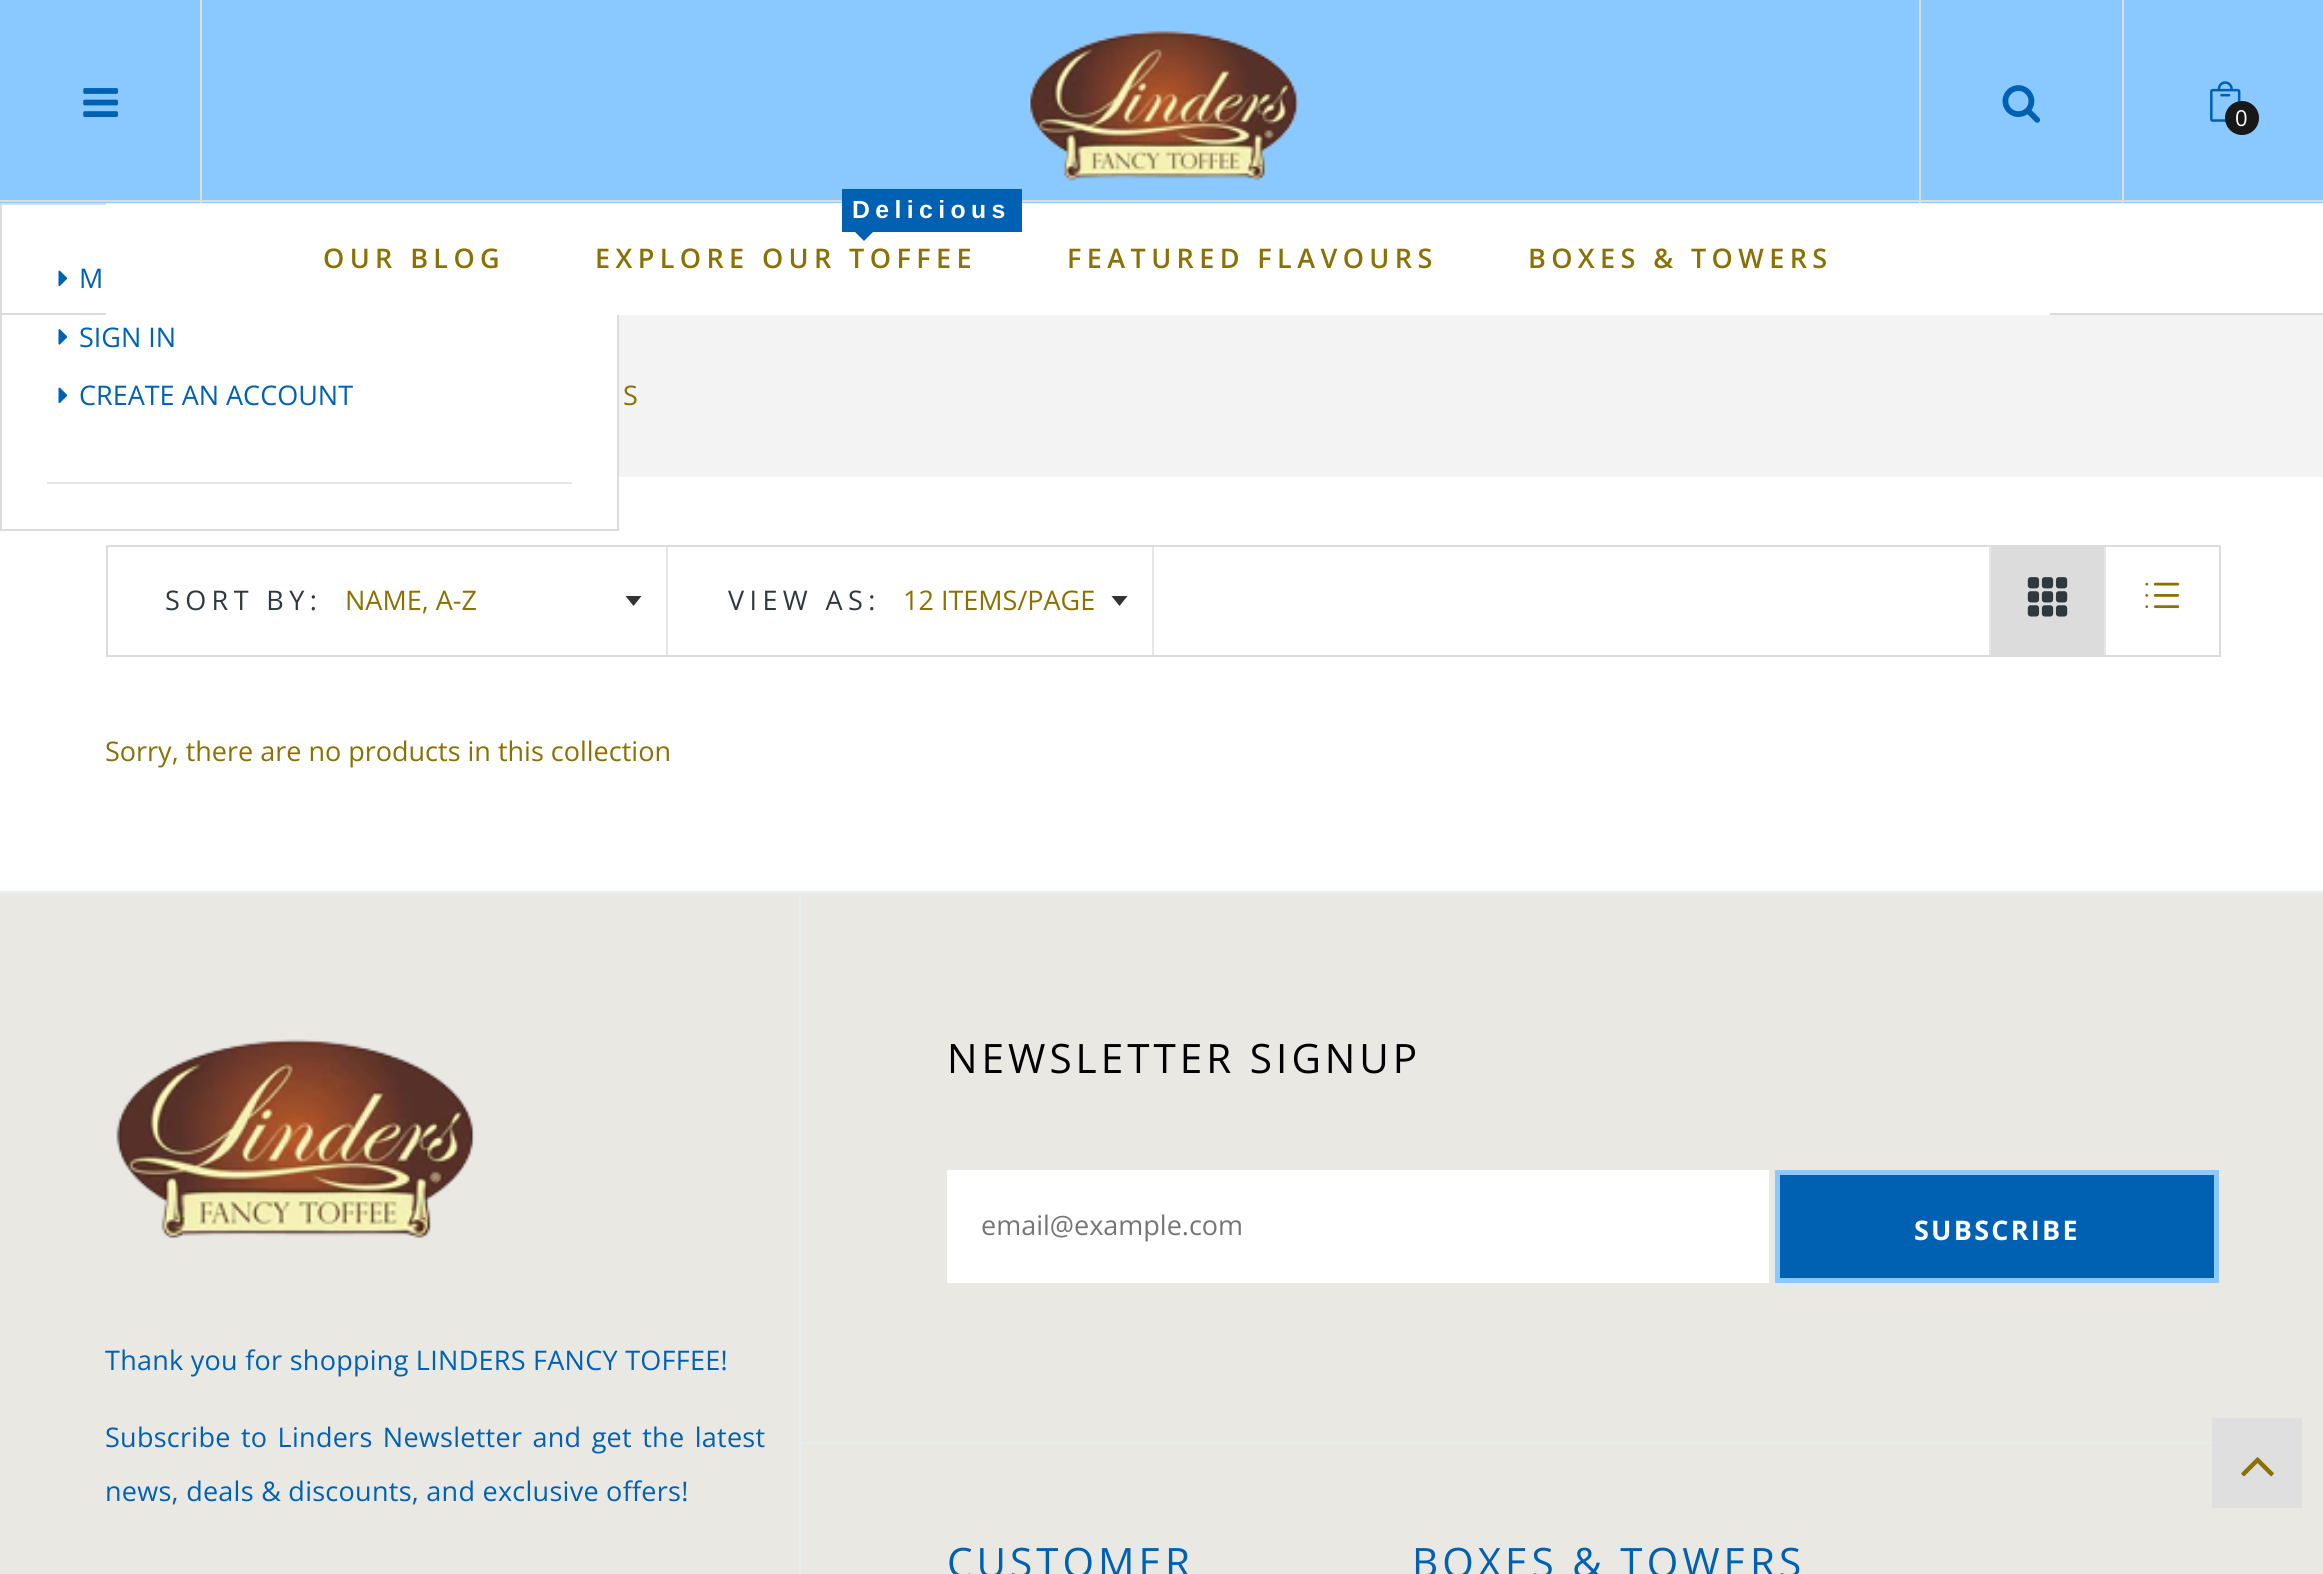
import math
import cairo

surface = cairo.ImageSurface(cairo.FORMAT_RGB24, 2323, 1574)
ctx = cairo.Context(surface)
options = cairo.FontOptions()
options.set_hint_metrics(cairo.HINT_METRICS_OFF)
options.set_hint_style(cairo.HINT_STYLE_NONE)
ctx.set_font_options(options)
ctx.set_miter_limit(4)


def spaced_text(x, y, s, letter, word):
    ctx.move_to(x, y)
    for ch in s:
        ctx.show_text(ch)
        ctx.rel_move_to(letter + word * (ch == ' '), 0)


def picture(path, x, y, w, h):
    ctx.save()
    ctx.set_source_surface(cairo.ImageSurface.create_from_png(path), x, y)
    ctx.rectangle(x, y, w, h)
    ctx.fill()
    ctx.restore()


ctx.set_source_rgb(1, 1, 1)
ctx.paint()
ctx.set_source_rgb(0.537, 0.788, 1)
ctx.rectangle(0, 0, 2323, 203)
ctx.fill()
ctx.set_source_rgb(0.863, 0.863, 0.863)
ctx.rectangle(0, 200, 2323, 2)
ctx.fill()
picture("img1.png", 1028, 31, 271, 150)
ctx.rectangle(1919, 0, 2, 203)
ctx.fill()
picture("img2.png", 2002, 85, 39, 38)
ctx.rectangle(2122, 0, 2, 203)
ctx.fill()
picture("img3.png", 2210, 81, 31, 41)
ctx.set_source_rgb(0.094, 0.094, 0.094)
ctx.arc(2242, 118, 17, 0, 2 * math.pi)
ctx.fill()
ctx.select_font_face("Open Sans")
ctx.set_font_size(22)
ctx.set_source_rgb(1, 1, 1)
ctx.move_to(2235, 126)
ctx.show_text("0")
ctx.set_source_rgb(0.863, 0.863, 0.863)
ctx.rectangle(200, 0, 2, 203)
ctx.fill()
picture("img4.png", 83, 88, 35, 29)
ctx.rectangle(1, 204, 617, 326)
ctx.stroke()
ctx.set_source_rgb(0.902, 0.902, 0.902)
ctx.rectangle(47, 482, 525, 2)
ctx.fill()
picture("img5.png", 58, 270, 10, 17)
ctx.set_font_size(27)
ctx.set_source_rgb(0, 0.38, 0.698)
ctx.move_to(79, 288)
ctx.show_text("M")
picture("img6.png", 58, 329, 10, 16)
ctx.move_to(79, 347)
ctx.show_text("SIGN IN")
picture("img5.png", 58, 387, 10, 17)
ctx.move_to(79, 405)
ctx.show_text("CREATE AN ACCOUNT")
ctx.set_source_rgb(0.863, 0.863, 0.863)
ctx.rectangle(0, 313, 2323, 2)
ctx.fill()
ctx.set_source_rgb(1, 1, 1)
ctx.rectangle(106, 203, 1944, 112)
ctx.fill()
ctx.select_font_face("Open Sans SemiBold")
ctx.set_source_rgb(0.545, 0.439, 0.012)
spaced_text(323, 268, "OUR BLOG", 5.4, 0)
ctx.set_source_rgb(0, 0.38, 0.698)
ctx.rectangle(842, 189, 180, 43)
ctx.fill()
ctx.select_font_face("Liberation Sans", cairo.FONT_SLANT_NORMAL, cairo.FONT_WEIGHT_BOLD)
ctx.set_font_size(24.75)
ctx.set_source_rgb(1, 1, 1)
spaced_text(852, 218, "Delicious", 5.4, 0)
ctx.set_source_rgb(0, 0.38, 0.698)
ctx.new_path()
ctx.move_to(855, 232)
ctx.line_to(873, 232)
ctx.line_to(864, 241)
ctx.close_path()
ctx.fill()
ctx.select_font_face("Open Sans SemiBold")
ctx.set_font_size(27)
ctx.set_source_rgb(0.545, 0.439, 0.012)
spaced_text(595, 268, "EXPLORE OUR TOFFEE", 5.4, 0)
spaced_text(1067, 268, "FEATURED FLAVOURS", 5.4, 0)
spaced_text(1528, 268, "BOXES & TOWERS", 5.4, 0)
ctx.set_source_rgb(0.953, 0.953, 0.953)
ctx.rectangle(619, 315, 1704, 162)
ctx.fill()
ctx.select_font_face("Open Sans")
ctx.set_source_rgb(0.545, 0.439, 0.012)
spaced_text(623, 405, "S", 5.4, 0)
ctx.rectangle(107, 546, 2113, 110)
ctx.set_source_rgb(0.863, 0.863, 0.863)
ctx.stroke()
ctx.set_source_rgb(0.902, 0.902, 0.902)
ctx.rectangle(666, 547, 2, 108)
ctx.fill()
ctx.set_source_rgb(0.184, 0.22, 0.239)
spaced_text(165, 610, "SORT BY:", 5.4, 0)
ctx.set_source_rgb(0.2, 0.2, 0.2)
ctx.new_path()
ctx.move_to(625.5, 596)
ctx.line_to(633.5, 606)
ctx.line_to(641.5, 596)
ctx.close_path()
ctx.fill()
ctx.set_source_rgb(0.545, 0.439, 0.012)
ctx.move_to(345, 610)
ctx.show_text("NAME, A-Z")
ctx.set_source_rgb(0.902, 0.902, 0.902)
ctx.rectangle(1152, 547, 2, 108)
ctx.fill()
ctx.set_source_rgb(0.184, 0.22, 0.239)
spaced_text(728, 610, "VIEW AS:", 5.4, 0)
ctx.set_source_rgb(0.2, 0.2, 0.2)
ctx.new_path()
ctx.move_to(1111.5, 596)
ctx.line_to(1119.5, 606)
ctx.line_to(1127.5, 596)
ctx.close_path()
ctx.fill()
ctx.set_source_rgb(0.545, 0.439, 0.012)
ctx.move_to(903, 610)
ctx.show_text("12 ITEMS/PAGE")
ctx.set_source_rgb(0.863, 0.863, 0.863)
ctx.rectangle(1991, 547, 113, 108)
ctx.fill()
ctx.set_source_rgb(0.906, 0.902, 0.902)
ctx.rectangle(1989, 547, 2, 108)
ctx.fill()
picture("img7.png", 2027, 577, 41, 40)
ctx.rectangle(2104, 547, 2, 108)
ctx.fill()
picture("img8.png", 2145, 582, 35, 27)
ctx.set_source_rgb(0.545, 0.439, 0.012)
ctx.move_to(105, 761)
ctx.show_text("Sorry, there are no products in this collection")
ctx.set_source_rgb(0.914, 0.91, 0.89)
ctx.rectangle(0, 893, 2323, 681)
ctx.fill()
ctx.set_source_rgb(0.898, 0.929, 0.941)
ctx.rectangle(0, 891, 2323, 2)
ctx.fill()
picture("img9.png", 116, 1039, 359, 200)
ctx.set_source_rgb(0, 0.38, 0.698)
spaced_text(105, 1370, "Thank you for shopping LINDERS FANCY TOFFEE!", 0.27, 0)
spaced_text(105, 1447, "Subscribe to Linders Newsletter and get the latest", 0.27, 3)
spaced_text(105, 1501, "news, deals & discounts, and exclusive offers!", 0.27, 0)
ctx.set_source_rgb(0.898, 0.929, 0.941)
ctx.rectangle(799, 893, 2, 681)
ctx.fill()
ctx.rectangle(801, 1442, 1411, 2)
ctx.fill()
ctx.set_font_size(40.5)
ctx.set_source_rgb(0, 0, 0)
spaced_text(947, 1073, "NEWSLETTER SIGNUP", 4, 0)
ctx.set_source_rgb(1, 1, 1)
ctx.rectangle(947, 1170, 822, 113)
ctx.fill()
ctx.set_font_size(27)
ctx.set_source_rgb(0.459, 0.459, 0.459)
ctx.move_to(981, 1235)
ctx.show_text("email@example.com")
ctx.set_source_rgb(0, 0.38, 0.698)
ctx.rectangle(1777.5, 1172.5, 439, 108)
ctx.fill_preserve()
ctx.set_source_rgb(0.537, 0.788, 1)
ctx.set_line_width(5)
ctx.stroke()
ctx.select_font_face("Open Sans", cairo.FONT_SLANT_NORMAL, cairo.FONT_WEIGHT_BOLD)
ctx.set_source_rgb(1, 1, 1)
spaced_text(1914, 1240, "SUBSCRIBE", 2.25, 0)
ctx.select_font_face("Open Sans")
ctx.set_font_size(40.5)
ctx.set_source_rgb(0, 0.38, 0.698)
spaced_text(947, 1577, "CUSTOMER", 4, 0)
spaced_text(1412, 1577, "BOXES & TOWERS", 4, 0)
ctx.set_source_rgb(0.875, 0.875, 0.875)
ctx.rectangle(2212, 1418, 90, 90)
ctx.fill()
picture("img10.png", 2241, 1457, 33, 20)
surface.write_to_png("page.png")
